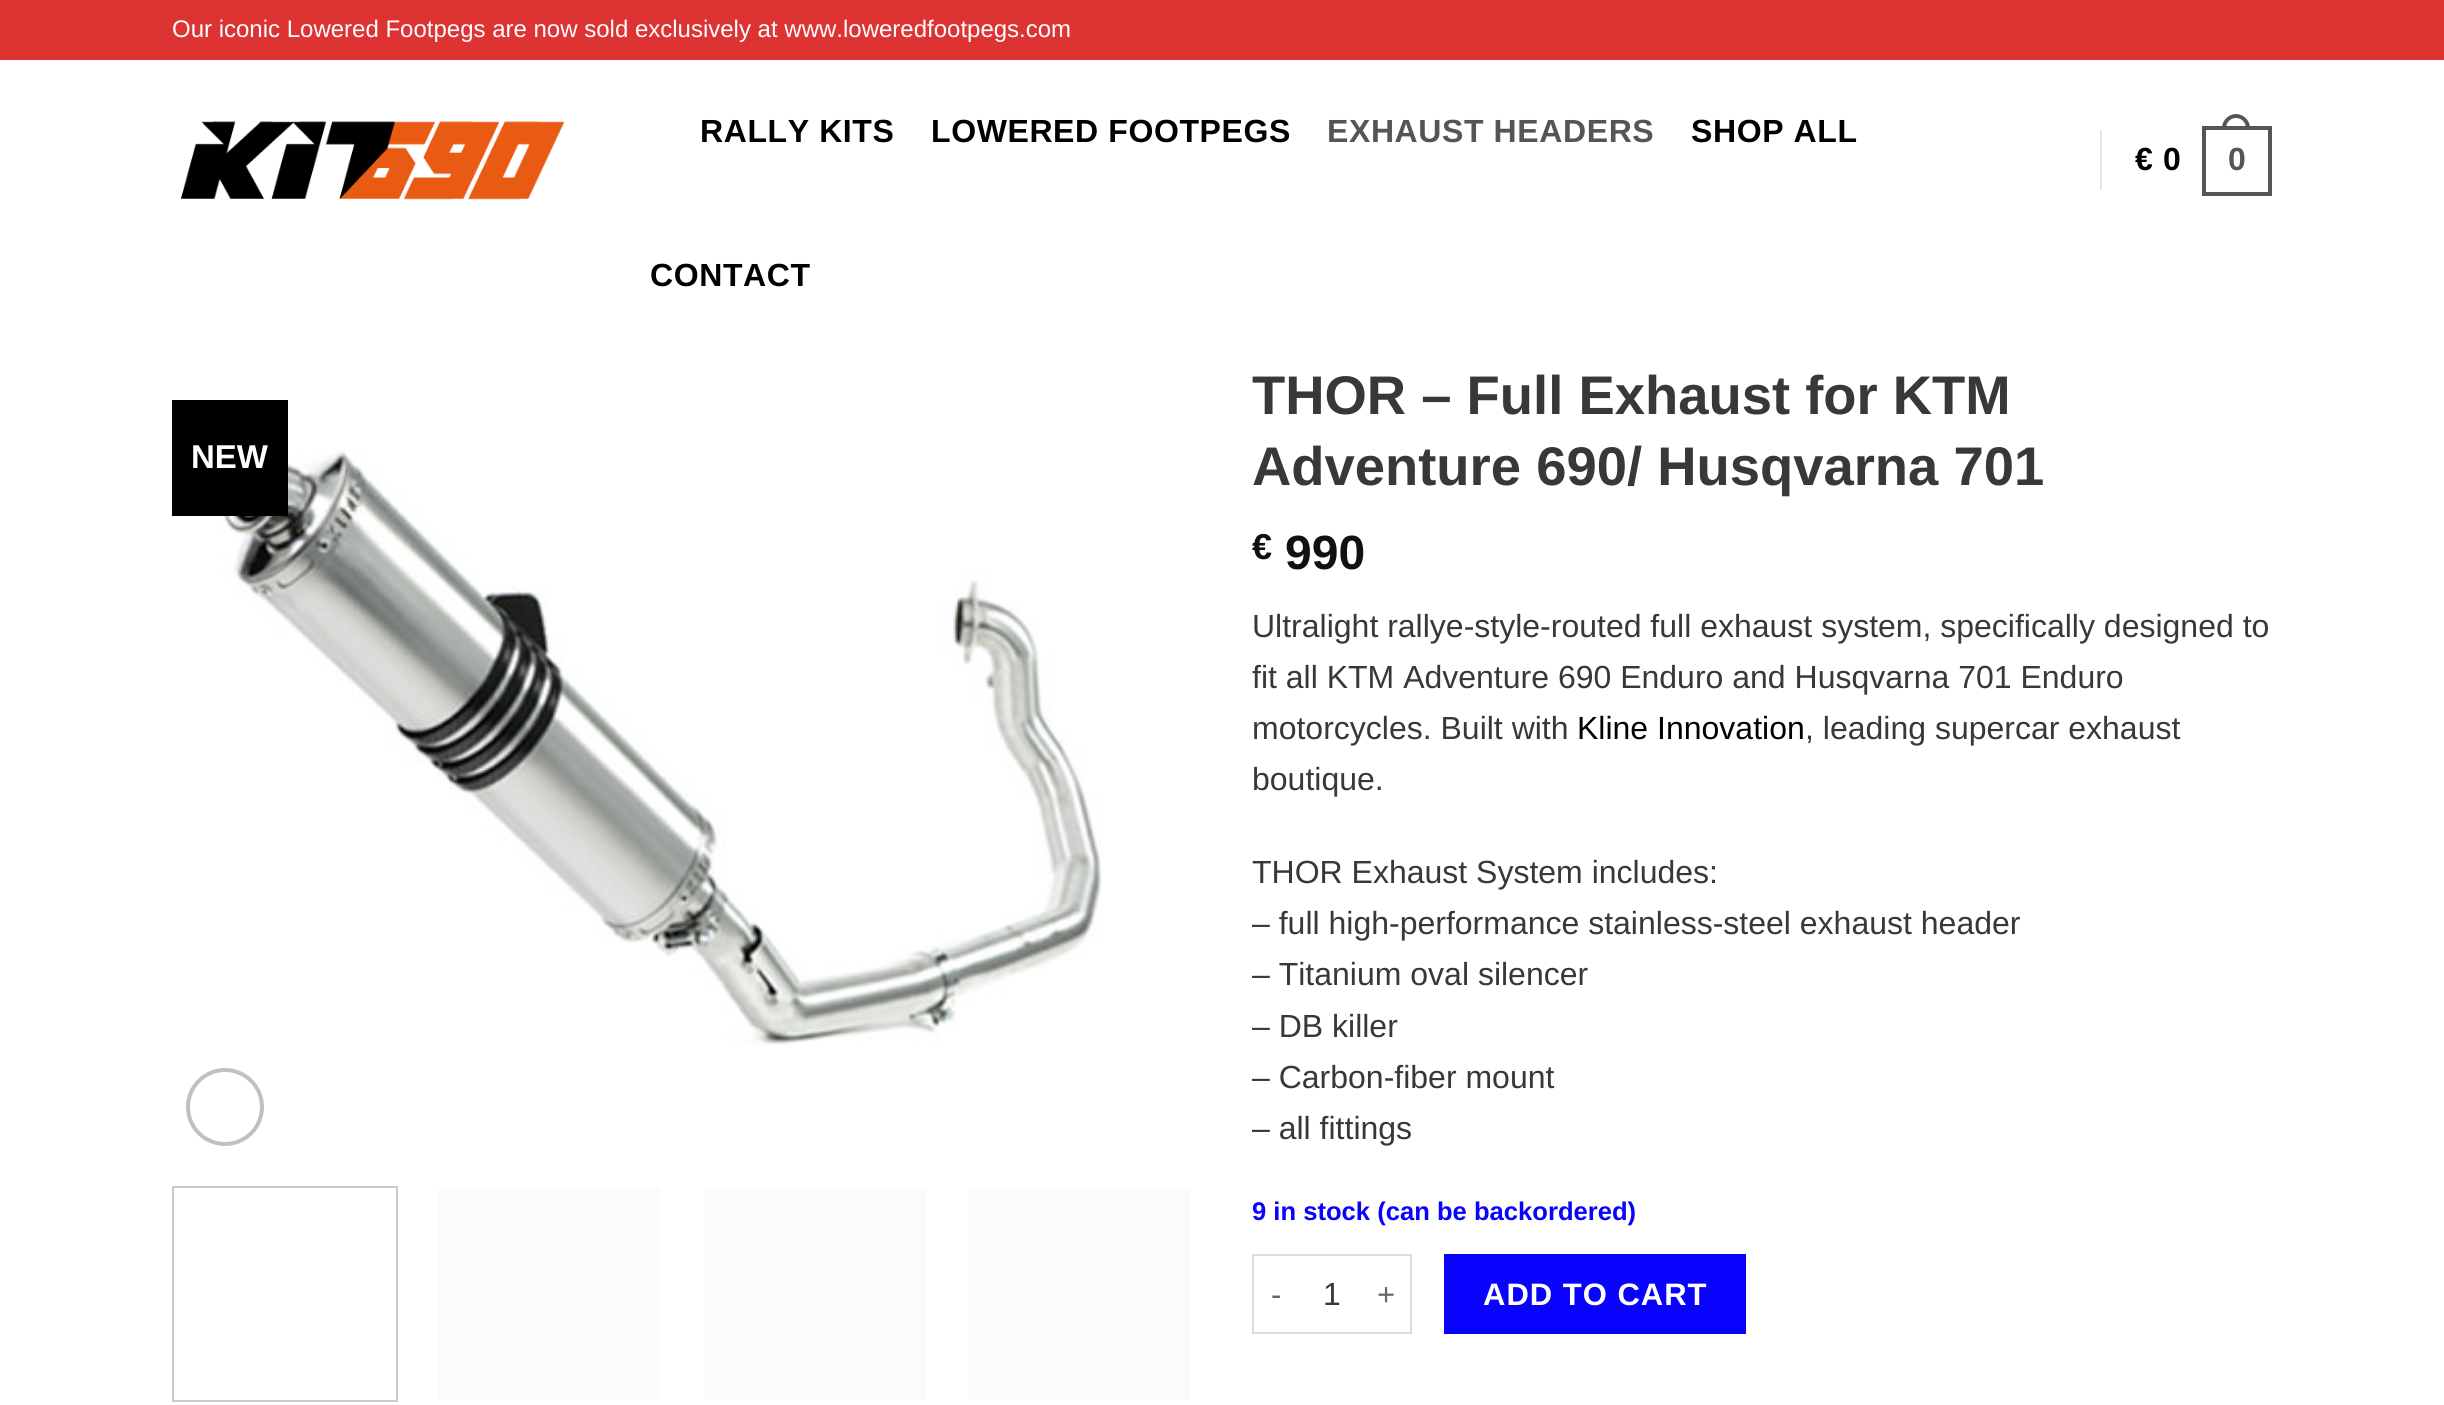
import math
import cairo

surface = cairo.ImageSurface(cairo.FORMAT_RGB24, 2444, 1405)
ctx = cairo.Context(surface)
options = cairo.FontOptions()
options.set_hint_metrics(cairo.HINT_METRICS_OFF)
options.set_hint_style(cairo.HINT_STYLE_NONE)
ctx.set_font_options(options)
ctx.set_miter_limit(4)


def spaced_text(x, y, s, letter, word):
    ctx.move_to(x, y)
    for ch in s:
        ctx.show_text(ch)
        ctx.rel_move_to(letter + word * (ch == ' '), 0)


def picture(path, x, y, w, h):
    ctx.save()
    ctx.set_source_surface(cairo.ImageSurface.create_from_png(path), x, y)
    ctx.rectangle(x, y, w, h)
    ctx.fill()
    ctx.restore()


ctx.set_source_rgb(1, 1, 1)
ctx.paint()
ctx.set_source_rgb(0.867, 0.2, 0.2)
ctx.rectangle(0, 0, 2444, 60)
ctx.fill()
ctx.select_font_face("Liberation Sans")
ctx.set_font_size(24)
ctx.set_source_rgb(1, 1, 1)
ctx.move_to(172, 37)
ctx.show_text("Our iconic Lowered Footpegs are now sold exclusively at www.loweredfootpegs.com")
picture("img1.png", 181, 121, 384, 79)
ctx.select_font_face("Liberation Sans", cairo.FONT_SLANT_NORMAL, cairo.FONT_WEIGHT_BOLD)
ctx.set_font_size(32)
ctx.set_source_rgb(0, 0, 0)
spaced_text(700, 142, "RALLY KITS", 0.6, 0)
spaced_text(931, 142, "LOWERED FOOTPEGS", 0.6, 0)
ctx.set_source_rgb(0.333, 0.333, 0.333)
spaced_text(1327, 142, "EXHAUST HEADERS", 0.6, 0)
ctx.set_source_rgb(0, 0, 0)
spaced_text(1691, 142, "SHOP ALL", 0.6, 0)
spaced_text(650, 286, "CONTACT", 0.6, 0)
ctx.set_source_rgb(0.902, 0.902, 0.902)
ctx.rectangle(2100, 130, 2, 60)
ctx.fill()
ctx.set_source_rgb(0, 0, 0)
spaced_text(2135, 170, "€ 0", 0.6, 0)
ctx.rectangle(2204, 128, 66, 66)
ctx.set_source_rgb(0.333, 0.333, 0.333)
ctx.set_line_width(4)
ctx.stroke()
ctx.set_fill_rule(cairo.FILL_RULE_EVEN_ODD)
ctx.new_path()
ctx.move_to(2236, 114)
ctx.curve_to(2243.5, 114, 2250, 120.5, 2250, 128)
ctx.line_to(2250, 130)
ctx.line_to(2222, 130)
ctx.line_to(2222, 128)
ctx.curve_to(2222, 120.5, 2228.5, 114, 2236, 114)
ctx.close_path()
ctx.move_to(2236, 118)
ctx.curve_to(2241.5, 118, 2246, 122.5, 2246, 128)
ctx.line_to(2246, 130)
ctx.line_to(2226, 130)
ctx.line_to(2226, 128)
ctx.curve_to(2226, 122.5, 2230.5, 118, 2236, 118)
ctx.close_path()
ctx.fill()
spaced_text(2228, 170, "0", 0.6, 0)
picture("img2.png", 221, 446, 881, 600)
ctx.set_source_rgb(0, 0, 0)
ctx.rectangle(172, 400, 116, 116)
ctx.fill()
ctx.set_font_size(33)
ctx.set_source_rgb(1, 1, 1)
ctx.move_to(191, 468)
ctx.show_text("NEW")
ctx.new_path()
ctx.arc(225, 1107, 37, 0, 2 * math.pi)
ctx.set_source_rgb(0.753, 0.753, 0.753)
ctx.stroke()
ctx.rectangle(173, 1187, 224, 214)
ctx.set_source_rgb(0.8, 0.8, 0.8)
ctx.set_line_width(2)
ctx.stroke()
ctx.set_source_rgb(0.984, 0.984, 0.984)
ctx.rectangle(438, 1188, 222, 212)
ctx.fill()
ctx.rectangle(704, 1188, 222, 212)
ctx.fill()
ctx.rectangle(968, 1188, 222, 212)
ctx.fill()
ctx.set_font_size(54.4)
ctx.set_source_rgb(0.22, 0.22, 0.22)
ctx.move_to(1252, 414)
ctx.show_text("THOR – Full Exhaust for KTM")
ctx.move_to(1252, 485)
ctx.show_text("Adventure 690/ Husqvarna 701")
ctx.set_font_size(36)
ctx.set_source_rgb(0.067, 0.067, 0.067)
ctx.move_to(1252, 559)
ctx.show_text("€")
ctx.set_font_size(48)
ctx.move_to(1285, 569)
ctx.show_text("990")
ctx.select_font_face("Liberation Sans")
ctx.set_font_size(32)
ctx.set_source_rgb(0.22, 0.22, 0.22)
ctx.move_to(1252, 637)
ctx.show_text("Ultralight rallye-style-routed full exhaust system, specifically designed to")
ctx.move_to(1252, 688)
ctx.show_text("fit all KTM Adventure 690 Enduro and Husqvarna 701 Enduro")
ctx.move_to(1252, 739)
ctx.show_text("motorcycles. Built with")
ctx.set_source_rgb(0, 0, 0)
ctx.move_to(1577, 739)
ctx.show_text("Kline Innovation")
ctx.set_source_rgb(0.22, 0.22, 0.22)
ctx.move_to(1805, 739)
ctx.show_text(", leading supercar exhaust")
ctx.move_to(1252, 790)
ctx.show_text("boutique.")
ctx.move_to(1252, 883)
ctx.show_text("THOR Exhaust System includes:")
ctx.move_to(1252, 934)
ctx.show_text("– full high-performance stainless-steel exhaust header")
ctx.move_to(1252, 985)
ctx.show_text("– Titanium oval silencer")
ctx.move_to(1252, 1037)
ctx.show_text("– DB killer")
ctx.move_to(1252, 1088)
ctx.show_text("– Carbon-fiber mount")
ctx.move_to(1252, 1139)
ctx.show_text("– all fittings")
ctx.select_font_face("Liberation Sans", cairo.FONT_SLANT_NORMAL, cairo.FONT_WEIGHT_BOLD)
ctx.set_font_size(25.6)
ctx.set_source_rgb(0.039, 0.012, 0.996)
ctx.move_to(1252, 1220)
ctx.show_text("9 in stock (can be backordered)")
ctx.set_source_rgb(0.867, 0.867, 0.867)
ctx.rectangle(1252, 1254, 160, 2)
ctx.fill()
ctx.rectangle(1252, 1332, 112, 2)
ctx.fill()
ctx.rectangle(1252, 1254, 2, 80)
ctx.fill()
ctx.select_font_face("Liberation Sans")
ctx.set_font_size(31)
ctx.set_source_rgb(0.4, 0.4, 0.4)
spaced_text(1271, 1305, "-", 1, 0)
ctx.set_font_size(32)
ctx.set_source_rgb(0.22, 0.22, 0.22)
ctx.move_to(1323, 1305)
ctx.show_text("1")
ctx.set_source_rgb(0.867, 0.867, 0.867)
ctx.rectangle(1410, 1254, 2, 80)
ctx.fill()
ctx.rectangle(1364, 1332, 48, 2)
ctx.fill()
ctx.set_font_size(31)
ctx.set_source_rgb(0.4, 0.4, 0.4)
spaced_text(1377, 1305, "+", 1, 0)
ctx.set_source_rgb(0.039, 0.012, 0.996)
ctx.rectangle(1445, 1255, 300, 78)
ctx.fill_preserve()
ctx.set_source_rgb(0.039, 0.012, 0.945)
ctx.stroke()
ctx.select_font_face("Liberation Sans", cairo.FONT_SLANT_NORMAL, cairo.FONT_WEIGHT_BOLD)
ctx.set_source_rgb(1, 1, 1)
spaced_text(1483, 1305, "ADD TO CART", 1, 0)
surface.write_to_png("page.png")
